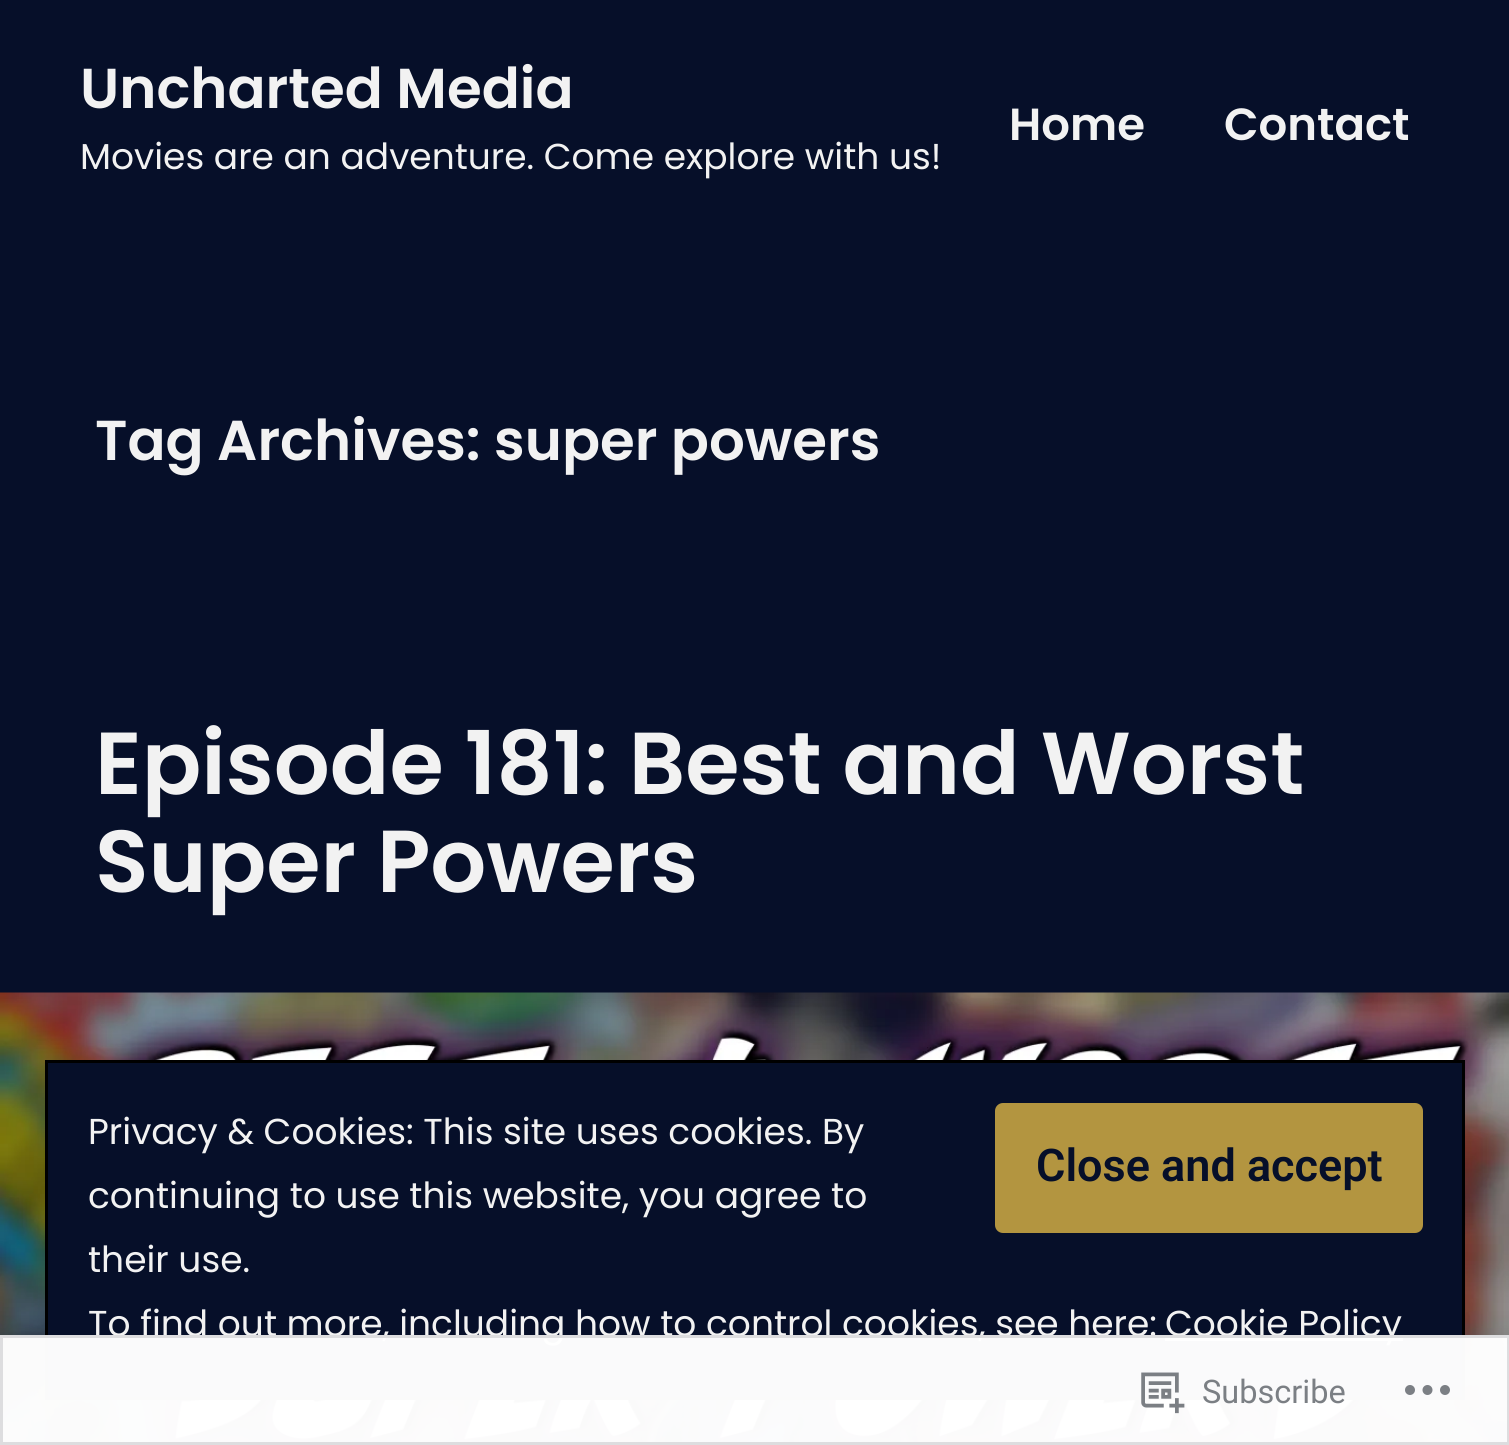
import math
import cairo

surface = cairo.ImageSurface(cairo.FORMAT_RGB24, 1509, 1445)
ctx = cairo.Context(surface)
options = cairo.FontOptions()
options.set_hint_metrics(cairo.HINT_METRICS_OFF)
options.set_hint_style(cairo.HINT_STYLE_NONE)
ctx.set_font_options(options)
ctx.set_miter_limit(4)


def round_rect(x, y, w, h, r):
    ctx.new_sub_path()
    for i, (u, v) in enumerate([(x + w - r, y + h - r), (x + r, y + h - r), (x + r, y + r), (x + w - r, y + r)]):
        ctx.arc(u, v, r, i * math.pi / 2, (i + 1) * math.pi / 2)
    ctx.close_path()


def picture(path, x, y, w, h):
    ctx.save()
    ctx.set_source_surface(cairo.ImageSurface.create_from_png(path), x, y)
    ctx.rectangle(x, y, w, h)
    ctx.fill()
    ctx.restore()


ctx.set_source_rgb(0.024, 0.059, 0.161)
ctx.paint()
ctx.select_font_face("Poppins SemiBold")
ctx.set_font_size(56.25)
ctx.set_source_rgb(0.949, 0.949, 0.949)
ctx.move_to(80, 108)
ctx.show_text("Uncharted Media")
ctx.select_font_face("Poppins")
ctx.set_font_size(36)
ctx.move_to(80, 169)
ctx.show_text("Movies are an adventure. Come explore with us!")
ctx.select_font_face("Poppins SemiBold")
ctx.set_font_size(45)
ctx.move_to(1009, 140)
ctx.show_text("Home")
ctx.move_to(1224, 140)
ctx.show_text("Contact")
ctx.set_font_size(56.25)
ctx.move_to(95, 460)
ctx.show_text("Tag Archives: super powers")
ctx.set_font_size(87.9)
ctx.move_to(95, 794)
ctx.show_text("Episode 181: Best and Worst")
ctx.move_to(95, 892)
ctx.show_text("Super Powers")
picture("img1.png", 0, 992, 1509, 453)
ctx.set_source_rgb(0.024, 0.059, 0.161)
ctx.rectangle(46.5, 1061.5, 1417, 337)
ctx.fill_preserve()
ctx.set_source_rgb(0, 0, 0)
ctx.set_line_width(3)
ctx.stroke()
ctx.select_font_face("Poppins")
ctx.set_font_size(36)
ctx.set_source_rgb(0.949, 0.949, 0.949)
ctx.move_to(88, 1144)
ctx.show_text("Privacy & Cookies: This site uses cookies. By")
ctx.set_source_rgb(0.702, 0.584, 0.251)
round_rect(995, 1103, 428, 130, 8)
ctx.fill()
ctx.select_font_face("Roboto SemiBold")
ctx.set_font_size(45)
ctx.set_source_rgb(0.024, 0.059, 0.161)
ctx.move_to(1036, 1181)
ctx.show_text("Close and accept")
ctx.select_font_face("Poppins")
ctx.set_font_size(36)
ctx.set_source_rgb(0.949, 0.949, 0.949)
ctx.move_to(88, 1208)
ctx.show_text("continuing to use this website, you agree to")
ctx.move_to(88, 1272)
ctx.show_text("their use.")
ctx.move_to(88, 1336)
ctx.show_text("To find out more, including how to control cookies, see here:")
ctx.rectangle(1165, 1338, 238, 3)
ctx.fill()
ctx.move_to(1165, 1336)
ctx.show_text("Cookie Policy")
ctx.set_source_rgba(1, 1, 1, 0.98)
ctx.rectangle(0, 1335, 1509, 110)
ctx.fill()
ctx.rectangle(1.5, 1336.5, 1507, 107)
ctx.set_source_rgba(0.863, 0.863, 0.871, 0.98)
ctx.stroke()
picture("img2.png", 1141, 1372, 44, 42)
ctx.select_font_face("Roboto")
ctx.set_font_size(32.5)
ctx.set_source_rgb(0.482, 0.498, 0.518)
ctx.move_to(1202, 1403)
ctx.show_text("Subscribe")
picture("img3.png", 1405, 1385, 45, 10)
surface.write_to_png("page.png")
